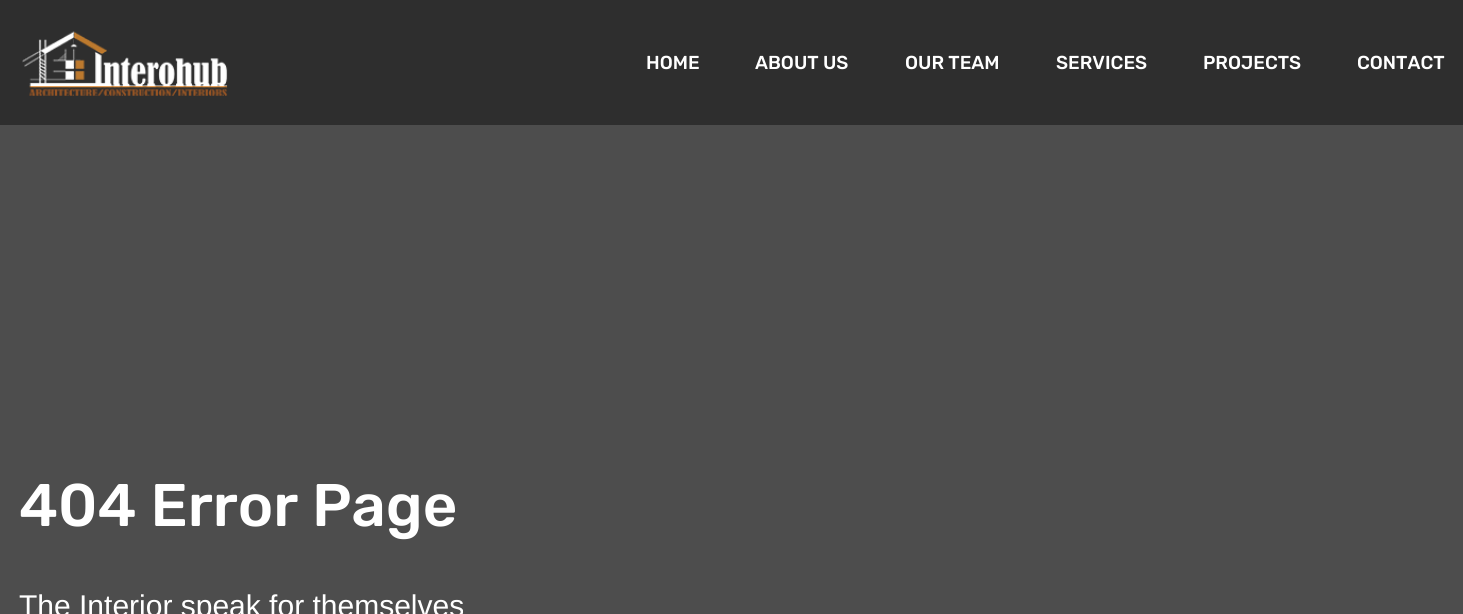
import math
import cairo

surface = cairo.ImageSurface(cairo.FORMAT_RGB24, 1463, 614)
ctx = cairo.Context(surface)
options = cairo.FontOptions()
options.set_hint_metrics(cairo.HINT_METRICS_OFF)
options.set_hint_style(cairo.HINT_STYLE_NONE)
ctx.set_font_options(options)
ctx.set_miter_limit(4)


def picture(path, x, y, w, h):
    ctx.save()
    ctx.set_source_surface(cairo.ImageSurface.create_from_png(path), x, y)
    ctx.rectangle(x, y, w, h)
    ctx.fill()
    ctx.restore()


ctx.set_source_rgb(0.302, 0.302, 0.302)
ctx.paint()
ctx.set_source_rgb(0.18, 0.18, 0.18)
ctx.rectangle(0, 0, 1463, 125)
ctx.fill()
picture("img1.png", 22, 31, 206, 65)
ctx.select_font_face("Rubik Medium")
ctx.set_font_size(18.75)
ctx.set_source_rgb(1, 1, 1)
ctx.move_to(646, 69)
ctx.show_text("HOME")
ctx.move_to(755, 69)
ctx.show_text("ABOUT US")
ctx.move_to(905, 69)
ctx.show_text("OUR TEAM")
ctx.move_to(1056, 69)
ctx.show_text("SERVICES")
ctx.move_to(1203, 69)
ctx.show_text("PROJECTS")
ctx.move_to(1357, 69)
ctx.show_text("CONTACT")
ctx.set_font_size(60)
ctx.move_to(19, 526)
ctx.show_text("404 Error Page")
ctx.select_font_face("Arimo")
ctx.set_font_size(30)
ctx.move_to(19, 616)
ctx.show_text("The Interior speak for themselves")
surface.write_to_png("page.png")
